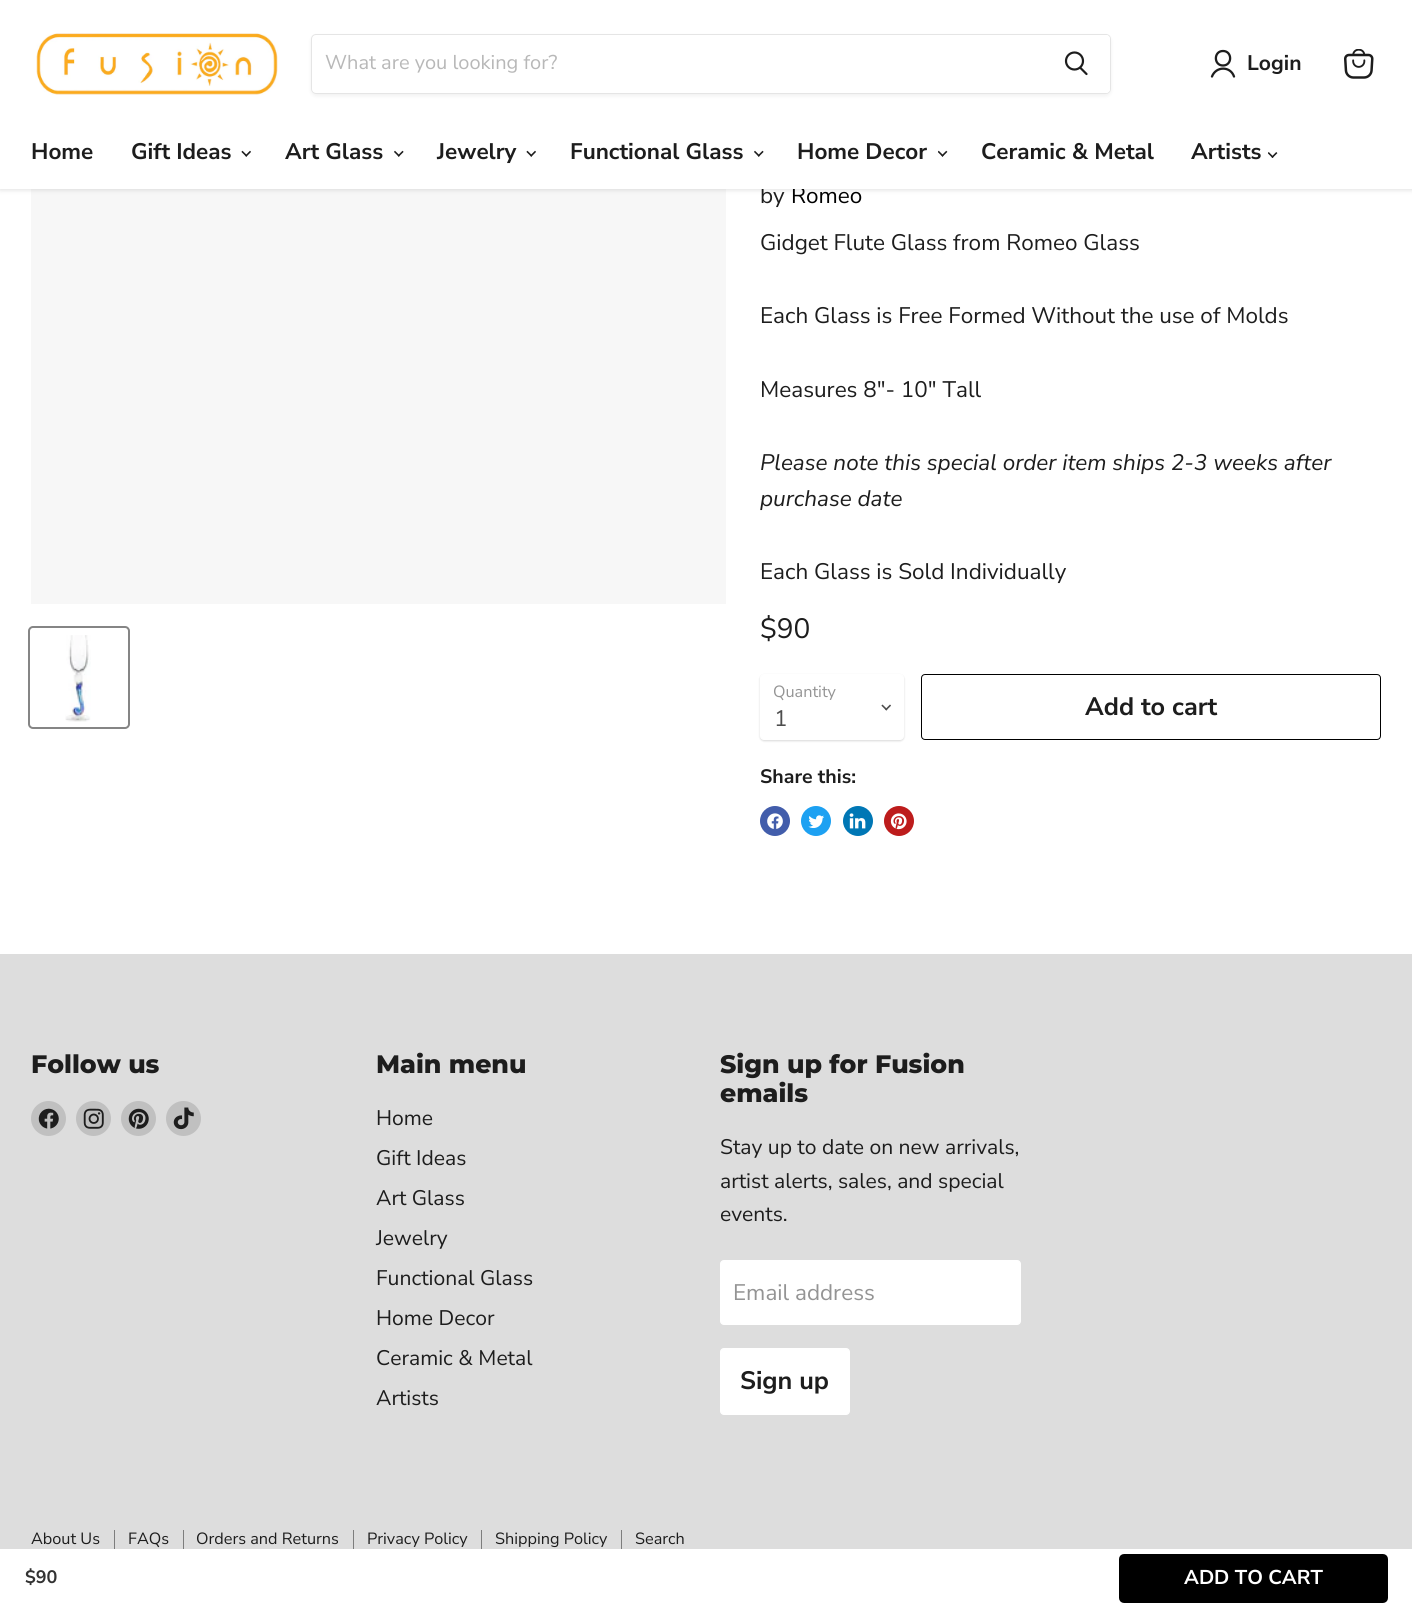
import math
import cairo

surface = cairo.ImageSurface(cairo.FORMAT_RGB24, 1412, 1607)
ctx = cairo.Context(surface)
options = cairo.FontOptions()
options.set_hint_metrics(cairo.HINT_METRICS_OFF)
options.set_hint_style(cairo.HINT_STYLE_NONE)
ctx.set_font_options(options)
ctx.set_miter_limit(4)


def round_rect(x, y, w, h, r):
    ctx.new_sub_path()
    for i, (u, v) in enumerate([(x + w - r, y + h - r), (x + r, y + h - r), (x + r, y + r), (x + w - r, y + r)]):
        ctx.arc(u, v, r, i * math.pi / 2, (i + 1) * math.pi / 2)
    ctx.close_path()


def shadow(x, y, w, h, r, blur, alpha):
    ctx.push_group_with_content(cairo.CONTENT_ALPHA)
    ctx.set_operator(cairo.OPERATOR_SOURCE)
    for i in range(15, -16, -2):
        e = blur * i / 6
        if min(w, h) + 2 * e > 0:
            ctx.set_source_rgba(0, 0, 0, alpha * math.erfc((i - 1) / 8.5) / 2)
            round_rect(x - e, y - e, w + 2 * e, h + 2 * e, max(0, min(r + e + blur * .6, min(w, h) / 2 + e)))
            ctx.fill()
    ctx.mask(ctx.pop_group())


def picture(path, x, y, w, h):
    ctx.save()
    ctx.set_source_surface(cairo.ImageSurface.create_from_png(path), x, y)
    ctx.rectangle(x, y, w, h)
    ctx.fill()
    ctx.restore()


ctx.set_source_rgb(1, 1, 1)
ctx.paint()
ctx.set_source_rgb(0.965, 0.965, 0.965)
ctx.rectangle(31, 189, 695, 415)
ctx.fill()
ctx.set_source_rgb(0.502, 0.502, 0.502)
shadow(0, 1, 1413, 189, 0, 2.5, 0.25)
ctx.select_font_face("Nunito Sans")
ctx.set_font_size(22.5)
ctx.set_source_rgb(0.114, 0.114, 0.114)
ctx.move_to(760, 203)
ctx.show_text("by")
ctx.set_source_rgb(0, 0, 0)
ctx.move_to(791, 203)
ctx.show_text("Romeo")
ctx.set_source_rgb(1, 1, 1)
ctx.rectangle(0, 0, 1412, 189)
ctx.fill()
picture("img1.png", 36, 33, 242, 62)
ctx.save()
ctx.set_fill_rule(cairo.FILL_RULE_EVEN_ODD)
ctx.new_path()
ctx.move_to(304, 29)
ctx.line_to(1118, 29)
ctx.line_to(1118, 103)
ctx.line_to(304, 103)
ctx.close_path()
ctx.move_to(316, 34)
ctx.line_to(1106, 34)
ctx.curve_to(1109, 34, 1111, 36, 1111, 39)
ctx.line_to(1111, 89)
ctx.curve_to(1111, 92, 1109, 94, 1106, 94)
ctx.line_to(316, 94)
ctx.curve_to(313, 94, 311, 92, 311, 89)
ctx.line_to(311, 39)
ctx.curve_to(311, 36, 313, 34, 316, 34)
ctx.close_path()
ctx.clip()
ctx.set_source_rgb(0.502, 0.502, 0.502)
shadow(311, 36, 800, 60, 5, 2, 0.11)
ctx.restore()
round_rect(311.5, 34.5, 799, 59, 4.5)
ctx.set_source_rgba(0.502, 0.502, 0.502, 0.2)
ctx.set_line_width(1)
ctx.stroke()
ctx.set_font_size(20)
ctx.set_source_rgb(0.722, 0.722, 0.722)
ctx.move_to(325, 69)
ctx.show_text("What are you looking for?")
ctx.set_source_rgb(1, 1, 1)
ctx.new_path()
ctx.move_to(1043.5, 35.5)
ctx.line_to(1106, 35.5)
ctx.curve_to(1108, 35.5, 1109.5, 37, 1109.5, 39)
ctx.line_to(1109.5, 89)
ctx.curve_to(1109.5, 91, 1108, 92.5, 1106, 92.5)
ctx.line_to(1043.5, 92.5)
ctx.close_path()
ctx.fill_preserve()
ctx.stroke()
ctx.new_path()
ctx.move_to(1086.5, 74)
ctx.line_to(1080.5, 68)
ctx.set_source_rgb(0.114, 0.114, 0.114)
ctx.set_line_width(2.2)
ctx.set_line_cap(cairo.LINE_CAP_ROUND)
ctx.stroke()
ctx.arc(1074.5, 61, 8.5, 0, 2 * math.pi)
ctx.set_line_cap(cairo.LINE_CAP_BUTT)
ctx.stroke()
ctx.new_path()
ctx.move_to(1223, 65.5)
ctx.curve_to(1232.5, 65.5, 1232.5, 51, 1223, 51)
ctx.curve_to(1213.5, 51, 1213.5, 65.5, 1223, 65.5)
ctx.close_path()
ctx.move_to(1234, 76.5)
ctx.curve_to(1230.5, 66, 1216, 66, 1212, 76.5)
ctx.set_line_width(2.3)
ctx.set_line_cap(cairo.LINE_CAP_ROUND)
ctx.set_line_join(cairo.LINE_JOIN_ROUND)
ctx.stroke()
ctx.select_font_face("Nunito Sans", cairo.FONT_SLANT_NORMAL, cairo.FONT_WEIGHT_BOLD)
ctx.set_font_size(21.1)
ctx.move_to(1247, 70)
ctx.show_text("Login")
picture("img2.png", 1344, 49, 30, 30)
ctx.set_font_size(22.5)
ctx.move_to(31, 159)
ctx.show_text("Home")
ctx.move_to(131, 159)
ctx.show_text("Gift Ideas")
picture("img3.png", 241, 150, 10, 7)
ctx.move_to(285, 159)
ctx.show_text("Art Glass")
picture("img4.png", 394, 150, 10, 7)
ctx.move_to(437, 159)
ctx.show_text("Jewelry")
picture("img3.png", 526, 150, 10, 7)
ctx.move_to(570, 159)
ctx.show_text("Functional Glass")
picture("img4.png", 754, 150, 10, 7)
ctx.move_to(797, 159)
ctx.show_text("Home Decor")
picture("img5.png", 938, 150, 10, 7)
ctx.move_to(981, 159)
ctx.show_text("Ceramic & Metal")
ctx.move_to(1191, 159)
ctx.show_text("Artists")
picture("img6.png", 1268, 152, 10, 6)
round_rect(29, 627, 100, 101, 4)
ctx.set_source_rgb(0.522, 0.522, 0.522)
ctx.set_line_width(2)
ctx.set_line_cap(cairo.LINE_CAP_BUTT)
ctx.set_line_join(cairo.LINE_JOIN_MITER)
ctx.stroke()
picture("img7.png", 65, 635, 26, 87)
ctx.select_font_face("Nunito Sans")
ctx.set_source_rgb(0.114, 0.114, 0.114)
ctx.move_to(760, 250)
ctx.show_text("Gidget Flute Glass from Romeo Glass")
ctx.move_to(760, 323)
ctx.show_text("Each Glass is Free Formed Without the use of Molds")
ctx.move_to(760, 397)
ctx.show_text("Measures 8\"- 10\" Tall")
ctx.select_font_face("Nunito Sans", cairo.FONT_SLANT_ITALIC)
ctx.move_to(760, 470)
ctx.show_text("Please note this special order item ships 2-3 weeks after")
ctx.move_to(760, 506)
ctx.show_text("purchase date")
ctx.select_font_face("Nunito Sans")
ctx.move_to(760, 579)
ctx.show_text("Each Glass is Sold Individually")
ctx.set_font_size(28)
ctx.move_to(760, 638)
ctx.show_text("$90")
ctx.set_source_rgb(0, 0, 0)
shadow(760, 675, 144, 66, 4, 1, 0.15)
ctx.set_source_rgb(1, 1, 1)
round_rect(760.5, 674.5, 143, 65, 3.5)
ctx.fill_preserve()
ctx.set_line_width(1)
ctx.stroke()
ctx.set_font_size(16.25)
ctx.set_source_rgb(0.58, 0.58, 0.58)
ctx.move_to(773, 697)
ctx.show_text("Quantity")
picture("img8.png", 881, 704, 10, 7)
ctx.set_font_size(22.5)
ctx.set_source_rgb(0.302, 0.302, 0.302)
ctx.move_to(774, 726)
ctx.show_text("1")
round_rect(921.5, 674.5, 459, 65, 3.5)
ctx.set_source_rgb(0, 0, 0)
ctx.stroke()
ctx.select_font_face("Nunito Sans", cairo.FONT_SLANT_NORMAL, cairo.FONT_WEIGHT_BOLD)
ctx.set_font_size(25.25)
ctx.set_source_rgb(0.114, 0.114, 0.114)
ctx.move_to(1085, 715)
ctx.show_text("Add to cart")
ctx.set_font_size(19.5)
ctx.move_to(760, 783)
ctx.show_text("Share this:")
ctx.set_source_rgb(0.259, 0.365, 0.671)
ctx.new_path()
ctx.arc(775, 821, 15, 0, 2 * math.pi)
ctx.fill()
picture("img9.png", 767, 813, 16, 16)
ctx.set_source_rgb(0.114, 0.631, 0.949)
ctx.arc(816, 821, 15, 0, 2 * math.pi)
ctx.fill()
picture("img10.png", 808, 815, 16, 13)
ctx.set_source_rgb(0, 0.467, 0.71)
ctx.arc(858, 821, 15, 0, 2 * math.pi)
ctx.fill()
picture("img11.png", 849, 813, 17, 16)
ctx.set_source_rgb(0.741, 0.11, 0.11)
ctx.arc(899, 821, 15, 0, 2 * math.pi)
ctx.fill()
picture("img12.png", 890, 813, 17, 17)
ctx.set_source_rgb(0.867, 0.867, 0.867)
ctx.rectangle(0, 954, 1412, 595)
ctx.fill()
ctx.select_font_face("Montserrat ExtraBold")
ctx.set_font_size(25.25)
ctx.set_source_rgb(0.114, 0.114, 0.114)
ctx.move_to(31, 1073)
ctx.show_text("Follow us")
ctx.set_source_rgb(0.753, 0.753, 0.753)
ctx.new_path()
ctx.arc(48.5, 1118.5, 17.5, 0, 2 * math.pi)
ctx.fill()
picture("img13.png", 38, 1108, 21, 21)
ctx.arc(93.5, 1118.5, 17.5, 0, 2 * math.pi)
ctx.fill()
picture("img14.png", 83, 1108, 21, 21)
ctx.arc(138.5, 1118.5, 17.5, 0, 2 * math.pi)
ctx.fill()
picture("img15.png", 128, 1108, 21, 21)
ctx.arc(183.5, 1118.5, 17.5, 0, 2 * math.pi)
ctx.fill()
picture("img16.png", 173, 1107, 21, 23)
ctx.set_source_rgb(0.114, 0.114, 0.114)
ctx.move_to(376, 1073)
ctx.show_text("Main menu")
ctx.select_font_face("Nunito Sans")
ctx.set_font_size(21.1)
ctx.move_to(376, 1125)
ctx.show_text("Home")
ctx.move_to(376, 1165)
ctx.show_text("Gift Ideas")
ctx.move_to(376, 1205)
ctx.show_text("Art Glass")
ctx.move_to(376, 1245)
ctx.show_text("Jewelry")
ctx.move_to(376, 1285)
ctx.show_text("Functional Glass")
ctx.move_to(376, 1325)
ctx.show_text("Home Decor")
ctx.move_to(376, 1365)
ctx.show_text("Ceramic & Metal")
ctx.move_to(376, 1405)
ctx.show_text("Artists")
ctx.select_font_face("Montserrat ExtraBold")
ctx.set_font_size(25.25)
ctx.move_to(720, 1073)
ctx.show_text("Sign up for Fusion")
ctx.move_to(720, 1102)
ctx.show_text("emails")
ctx.select_font_face("Nunito Sans")
ctx.set_font_size(21.1)
ctx.move_to(720, 1154)
ctx.show_text("Stay up to date on new arrivals,")
ctx.move_to(720, 1188)
ctx.show_text("artist alerts, sales, and special")
ctx.move_to(720, 1221)
ctx.show_text("events.")
ctx.set_source_rgb(1, 1, 1)
round_rect(720.5, 1260.5, 300, 64, 3.5)
ctx.fill_preserve()
ctx.stroke()
ctx.set_font_size(22.5)
ctx.set_source_rgb(0.58, 0.58, 0.58)
ctx.move_to(733, 1300)
ctx.show_text("Email address")
ctx.set_source_rgb(1, 1, 1)
round_rect(720.5, 1348.5, 129, 66, 3.5)
ctx.fill_preserve()
ctx.stroke()
ctx.select_font_face("Nunito Sans", cairo.FONT_SLANT_NORMAL, cairo.FONT_WEIGHT_BOLD)
ctx.set_font_size(25.25)
ctx.set_source_rgb(0.114, 0.114, 0.114)
ctx.move_to(740, 1389)
ctx.show_text("Sign up")
ctx.set_source_rgb(0.49, 0.49, 0.49)
ctx.rectangle(114, 1530, 1, 19)
ctx.fill()
ctx.select_font_face("Nunito Sans")
ctx.set_font_size(16.25)
ctx.set_source_rgb(0.114, 0.114, 0.114)
ctx.move_to(31, 1544)
ctx.show_text("About Us")
ctx.set_source_rgb(0.49, 0.49, 0.49)
ctx.rectangle(183, 1530, 1, 19)
ctx.fill()
ctx.set_source_rgb(0.114, 0.114, 0.114)
ctx.move_to(128, 1544)
ctx.show_text("FAQs")
ctx.set_source_rgb(0.49, 0.49, 0.49)
ctx.rectangle(353, 1530, 1, 19)
ctx.fill()
ctx.set_source_rgb(0.114, 0.114, 0.114)
ctx.move_to(196, 1544)
ctx.show_text("Orders and Returns")
ctx.set_source_rgb(0.49, 0.49, 0.49)
ctx.rectangle(481, 1530, 1, 19)
ctx.fill()
ctx.set_source_rgb(0.114, 0.114, 0.114)
ctx.move_to(367, 1544)
ctx.show_text("Privacy Policy")
ctx.set_source_rgb(0.49, 0.49, 0.49)
ctx.rectangle(621, 1530, 1, 19)
ctx.fill()
ctx.set_source_rgb(0.114, 0.114, 0.114)
ctx.move_to(495, 1544)
ctx.show_text("Shipping Policy")
ctx.move_to(635, 1544)
ctx.show_text("Search")
ctx.select_font_face("Nunito Sans", cairo.FONT_SLANT_NORMAL, cairo.FONT_WEIGHT_BOLD)
ctx.set_font_size(18)
ctx.set_source_rgb(0.2, 0.2, 0.2)
ctx.move_to(25, 1583)
ctx.show_text("$90")
ctx.set_source_rgb(0, 0, 0)
round_rect(1120.5, 1555.5, 266, 46, 3.5)
ctx.fill_preserve()
ctx.set_line_width(3)
ctx.stroke()
ctx.set_font_size(20)
ctx.set_source_rgb(1, 1, 1)
ctx.move_to(1184, 1584)
ctx.show_text("ADD TO CART")
surface.write_to_png("page.png")
